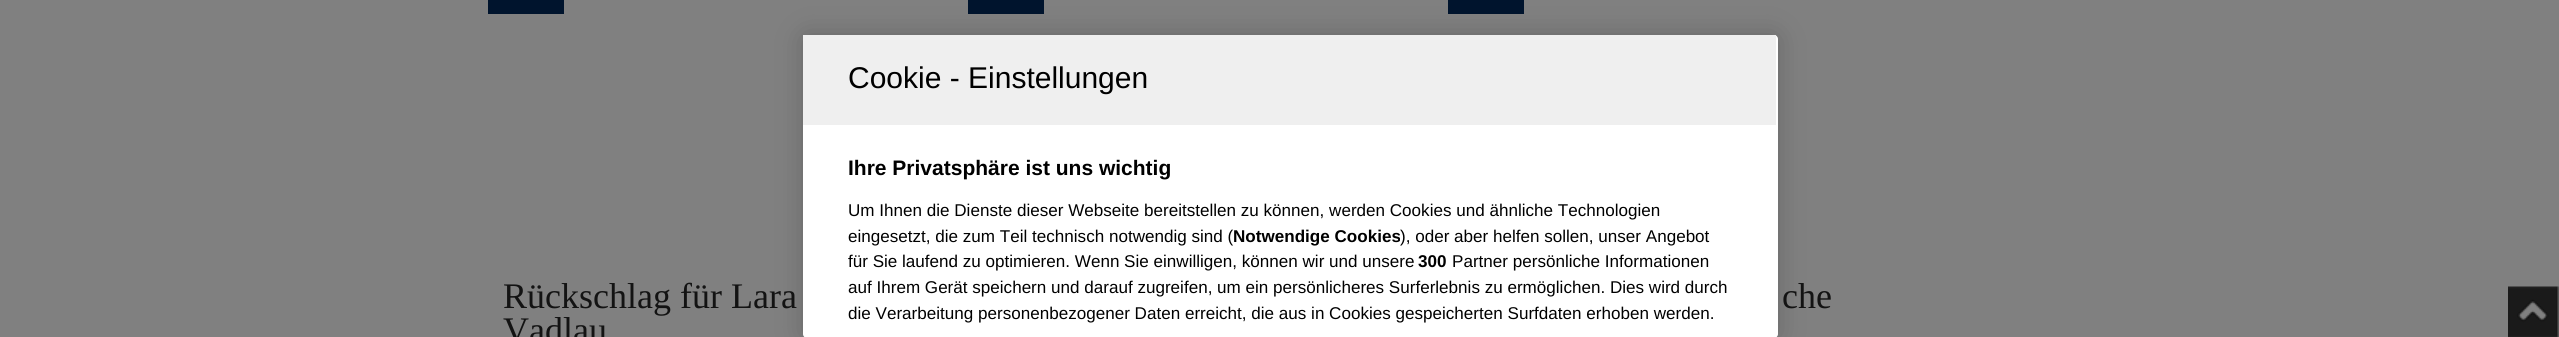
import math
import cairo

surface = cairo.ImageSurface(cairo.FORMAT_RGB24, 2559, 337)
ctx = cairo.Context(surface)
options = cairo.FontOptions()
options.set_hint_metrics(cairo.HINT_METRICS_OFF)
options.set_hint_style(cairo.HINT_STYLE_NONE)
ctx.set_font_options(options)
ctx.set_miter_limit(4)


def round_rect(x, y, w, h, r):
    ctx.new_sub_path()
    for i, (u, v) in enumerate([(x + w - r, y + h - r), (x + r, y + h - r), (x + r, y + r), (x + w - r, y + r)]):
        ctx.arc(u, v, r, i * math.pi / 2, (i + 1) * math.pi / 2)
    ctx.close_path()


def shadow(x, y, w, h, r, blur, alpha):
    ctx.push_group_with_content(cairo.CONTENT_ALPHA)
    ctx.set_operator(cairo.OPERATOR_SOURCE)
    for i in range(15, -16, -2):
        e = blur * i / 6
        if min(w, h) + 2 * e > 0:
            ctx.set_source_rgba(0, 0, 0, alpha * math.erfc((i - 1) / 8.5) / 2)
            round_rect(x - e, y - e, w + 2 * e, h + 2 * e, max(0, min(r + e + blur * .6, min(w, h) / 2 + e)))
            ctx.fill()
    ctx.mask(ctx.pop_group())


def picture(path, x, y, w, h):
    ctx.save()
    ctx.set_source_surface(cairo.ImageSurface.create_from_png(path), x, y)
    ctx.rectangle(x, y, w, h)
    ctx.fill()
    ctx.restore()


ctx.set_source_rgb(0.502, 0.502, 0.502)
ctx.paint()
ctx.set_source_rgb(0, 0.082, 0.176)
ctx.rectangle(968, 0, 76, 14)
ctx.fill()
ctx.rectangle(1448, 0, 76, 14)
ctx.fill()
ctx.set_source_rgb(0, 0, 0)
shadow(803, 35, 975, 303, 4, 13.5, 0.2)
ctx.set_source_rgb(1, 1, 1)
round_rect(803, 35, 975, 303, 4)
ctx.fill()
ctx.set_source_rgb(0.937, 0.937, 0.937)
ctx.rectangle(803, 35, 973, 90)
ctx.fill()
ctx.select_font_face("Liberation Sans")
ctx.set_font_size(30)
ctx.set_source_rgb(0, 0, 0)
ctx.move_to(848, 88)
ctx.show_text("Cookie - Einstellungen")
ctx.select_font_face("Liberation Sans", cairo.FONT_SLANT_NORMAL, cairo.FONT_WEIGHT_BOLD)
ctx.set_font_size(21)
ctx.move_to(848, 175)
ctx.show_text("Ihre Privatsphäre ist uns wichtig")
ctx.select_font_face("Liberation Sans")
ctx.set_font_size(17.07)
ctx.move_to(848, 216)
ctx.show_text("Um Ihnen die Dienste dieser Webseite bereitstellen zu können, werden Cookies und ähnliche Technologien")
ctx.move_to(848, 242)
ctx.show_text("eingesetzt, die zum Teil technisch notwendig sind (")
ctx.select_font_face("Liberation Sans", cairo.FONT_SLANT_NORMAL, cairo.FONT_WEIGHT_BOLD)
ctx.move_to(1233, 242)
ctx.show_text("Notwendige Cookies")
ctx.select_font_face("Liberation Sans")
ctx.move_to(1400, 242)
ctx.show_text("), oder aber helfen sollen, unser Angebot")
ctx.move_to(848, 267)
ctx.show_text("für Sie laufend zu optimieren. Wenn Sie einwilligen, können wir und unsere")
ctx.select_font_face("Liberation Sans", cairo.FONT_SLANT_NORMAL, cairo.FONT_WEIGHT_BOLD)
ctx.move_to(1418, 267)
ctx.show_text("300")
ctx.select_font_face("Liberation Sans")
ctx.move_to(1452, 267)
ctx.show_text("Partner persönliche Informationen")
ctx.move_to(848, 293)
ctx.show_text("auf Ihrem Gerät speichern und darauf zugreifen, um ein persönlicheres Surferlebnis zu ermöglichen. Dies wird durch")
ctx.move_to(848, 319)
ctx.show_text("die Verarbeitung personenbezogener Daten erreicht, die aus in Cookies gespeicherten Surfdaten erhoben werden.")
ctx.set_source_rgb(0, 0.082, 0.176)
ctx.rectangle(488, 0, 76, 14)
ctx.fill()
ctx.select_font_face("Liberation Serif")
ctx.set_font_size(36)
ctx.set_source_rgb(0.078, 0.078, 0.078)
ctx.move_to(503, 308)
ctx.show_text("Rückschlag für Lara")
ctx.move_to(503, 342)
ctx.show_text("Vadlau")
ctx.move_to(1782, 308)
ctx.show_text("che")
picture("img1.png", 2508, 286, 51, 51)
surface.write_to_png("page.png")
